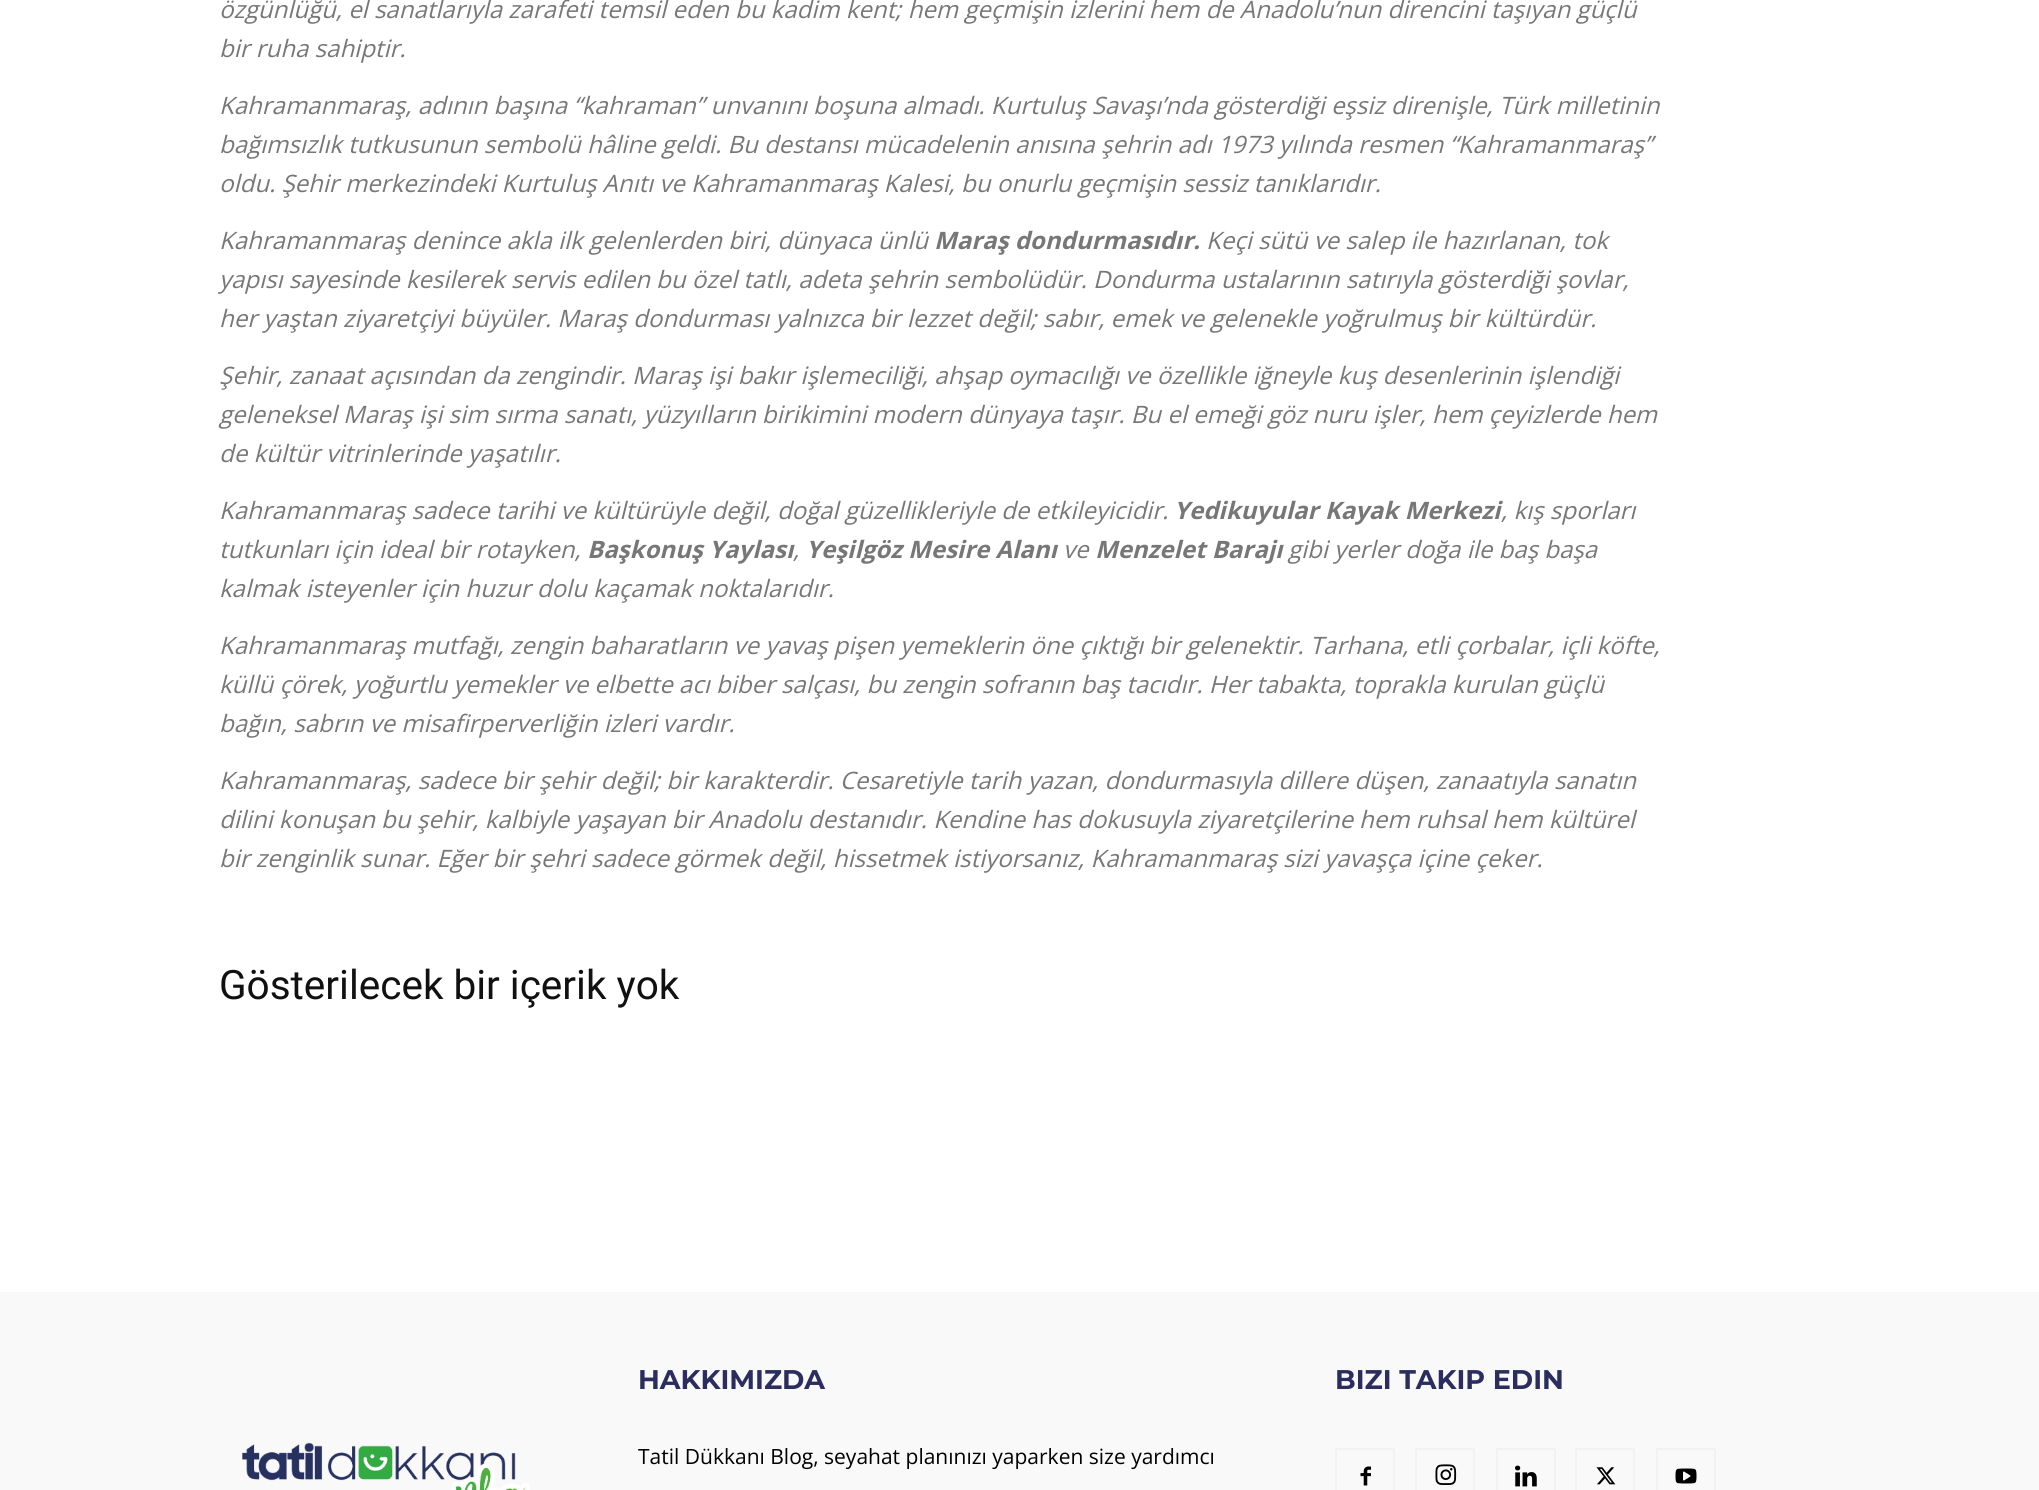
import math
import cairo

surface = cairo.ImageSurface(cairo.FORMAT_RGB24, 2039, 1490)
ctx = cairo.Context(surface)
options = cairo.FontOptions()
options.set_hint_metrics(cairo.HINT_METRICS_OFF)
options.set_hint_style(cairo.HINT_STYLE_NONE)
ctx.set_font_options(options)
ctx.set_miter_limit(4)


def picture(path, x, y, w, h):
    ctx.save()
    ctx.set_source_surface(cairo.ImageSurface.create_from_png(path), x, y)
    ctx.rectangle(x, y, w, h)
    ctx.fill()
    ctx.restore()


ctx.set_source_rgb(1, 1, 1)
ctx.paint()
ctx.select_font_face("Open Sans", cairo.FONT_SLANT_ITALIC)
ctx.set_font_size(24)
ctx.set_source_rgb(0.467, 0.467, 0.467)
ctx.move_to(219, 18)
ctx.show_text("özgünlüğü, el sanatlarıyla zarafeti temsil eden bu kadim kent; hem geçmişin izlerini hem de Anadolu’nun direncini taşıyan güçlü")
ctx.move_to(219, 57)
ctx.show_text("bir ruha sahiptir.")
ctx.move_to(219, 114)
ctx.show_text("Kahramanmaraş, adının başına “kahraman” unvanını boşuna almadı. Kurtuluş Savaşı’nda gösterdiği eşsiz direnişle, Türk milletinin")
ctx.move_to(219, 153)
ctx.show_text("bağımsızlık tutkusunun sembolü hâline geldi. Bu destansı mücadelenin anısına şehrin adı 1973 yılında resmen “Kahramanmaraş”")
ctx.move_to(219, 192)
ctx.show_text("oldu. Şehir merkezindeki Kurtuluş Anıtı ve Kahramanmaraş Kalesi, bu onurlu geçmişin sessiz tanıklarıdır.")
ctx.move_to(219, 249)
ctx.show_text("Kahramanmaraş denince akla ilk gelenlerden biri, dünyaca ünlü")
ctx.select_font_face("Open Sans", cairo.FONT_SLANT_ITALIC, cairo.FONT_WEIGHT_BOLD)
ctx.move_to(934, 249)
ctx.show_text("Maraş dondurmasıdır.")
ctx.select_font_face("Open Sans", cairo.FONT_SLANT_ITALIC)
ctx.move_to(1206, 249)
ctx.show_text("Keçi sütü ve salep ile hazırlanan, tok")
ctx.move_to(219, 288)
ctx.show_text("yapısı sayesinde kesilerek servis edilen bu özel tatlı, adeta şehrin sembolüdür. Dondurma ustalarının satırıyla gösterdiği şovlar,")
ctx.move_to(219, 327)
ctx.show_text("her yaştan ziyaretçiyi büyüler. Maraş dondurması yalnızca bir lezzet değil; sabır, emek ve gelenekle yoğrulmuş bir kültürdür.")
ctx.move_to(219, 384)
ctx.show_text("Şehir, zanaat açısından da zengindir. Maraş işi bakır işlemeciliği, ahşap oymacılığı ve özellikle iğneyle kuş desenlerinin işlendiği")
ctx.move_to(219, 423)
ctx.show_text("geleneksel Maraş işi sim sırma sanatı, yüzyılların birikimini modern dünyaya taşır. Bu el emeği göz nuru işler, hem çeyizlerde hem")
ctx.move_to(219, 462)
ctx.show_text("de kültür vitrinlerinde yaşatılır.")
ctx.move_to(219, 519)
ctx.show_text("Kahramanmaraş sadece tarihi ve kültürüyle değil, doğal güzellikleriyle de etkileyicidir.")
ctx.select_font_face("Open Sans", cairo.FONT_SLANT_ITALIC, cairo.FONT_WEIGHT_BOLD)
ctx.move_to(1174, 519)
ctx.show_text("Yedikuyular Kayak Merkezi")
ctx.select_font_face("Open Sans", cairo.FONT_SLANT_ITALIC)
ctx.move_to(1501, 519)
ctx.show_text(", kış sporları")
ctx.move_to(219, 558)
ctx.show_text("tutkunları için ideal bir rotayken,")
ctx.select_font_face("Open Sans", cairo.FONT_SLANT_ITALIC, cairo.FONT_WEIGHT_BOLD)
ctx.move_to(587, 558)
ctx.show_text("Başkonuş Yaylası")
ctx.select_font_face("Open Sans", cairo.FONT_SLANT_ITALIC)
ctx.move_to(793, 558)
ctx.show_text(",")
ctx.select_font_face("Open Sans", cairo.FONT_SLANT_ITALIC, cairo.FONT_WEIGHT_BOLD)
ctx.move_to(806, 558)
ctx.show_text("Yeşilgöz Mesire Alanı")
ctx.select_font_face("Open Sans", cairo.FONT_SLANT_ITALIC)
ctx.move_to(1063, 558)
ctx.show_text("ve")
ctx.select_font_face("Open Sans", cairo.FONT_SLANT_ITALIC, cairo.FONT_WEIGHT_BOLD)
ctx.move_to(1095, 558)
ctx.show_text("Menzelet Barajı")
ctx.select_font_face("Open Sans", cairo.FONT_SLANT_ITALIC)
ctx.move_to(1288, 558)
ctx.show_text("gibi yerler doğa ile baş başa")
ctx.move_to(219, 597)
ctx.show_text("kalmak isteyenler için huzur dolu kaçamak noktalarıdır.")
ctx.move_to(219, 654)
ctx.show_text("Kahramanmaraş mutfağı, zengin baharatların ve yavaş pişen yemeklerin öne çıktığı bir gelenektir. Tarhana, etli çorbalar, içli köfte,")
ctx.move_to(219, 693)
ctx.show_text("küllü çörek, yoğurtlu yemekler ve elbette acı biber salçası, bu zengin sofranın baş tacıdır. Her tabakta, toprakla kurulan güçlü")
ctx.move_to(219, 732)
ctx.show_text("bağın, sabrın ve misafirperverliğin izleri vardır.")
ctx.move_to(219, 789)
ctx.show_text("Kahramanmaraş, sadece bir şehir değil; bir karakterdir. Cesaretiyle tarih yazan, dondurmasıyla dillere düşen, zanaatıyla sanatın")
ctx.move_to(219, 828)
ctx.show_text("dilini konuşan bu şehir, kalbiyle yaşayan bir Anadolu destanıdır. Kendine has dokusuyla ziyaretçilerine hem ruhsal hem kültürel")
ctx.move_to(219, 867)
ctx.show_text("bir zenginlik sunar. Eğer bir şehri sadece görmek değil, hissetmek istiyorsanız, Kahramanmaraş sizi yavaşça içine çeker.")
ctx.select_font_face("Roboto")
ctx.set_font_size(40.5)
ctx.set_source_rgb(0.067, 0.067, 0.067)
ctx.move_to(219, 999)
ctx.show_text("Gösterilecek bir içerik yok")
ctx.set_source_rgb(0.976, 0.976, 0.976)
ctx.rectangle(0, 1292, 2039, 198)
ctx.fill()
ctx.select_font_face("Montserrat", cairo.FONT_SLANT_NORMAL, cairo.FONT_WEIGHT_BOLD)
ctx.set_font_size(27)
ctx.set_source_rgb(0.169, 0.176, 0.369)
ctx.move_to(638, 1389)
ctx.show_text("HAKKIMIZDA")
ctx.select_font_face("Open Sans")
ctx.set_font_size(21)
ctx.set_source_rgb(0, 0, 0)
ctx.move_to(638, 1464)
ctx.show_text("Tatil Dükkanı Blog, seyahat planınızı yaparken size yardımcı")
ctx.select_font_face("Montserrat", cairo.FONT_SLANT_NORMAL, cairo.FONT_WEIGHT_BOLD)
ctx.set_font_size(27)
ctx.set_source_rgb(0.169, 0.176, 0.369)
ctx.move_to(1335, 1389)
ctx.show_text("BIZI TAKIP EDIN")
picture("img1.png", 1360, 1466, 11, 20)
ctx.rectangle(1336, 1449, 58, 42)
ctx.set_source_rgb(0.949, 0.949, 0.949)
ctx.stroke()
picture("img2.png", 1435, 1464, 22, 21)
ctx.rectangle(1416, 1449, 58, 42)
ctx.stroke()
picture("img3.png", 1515, 1465, 22, 22)
ctx.rectangle(1497, 1449, 58, 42)
ctx.stroke()
picture("img4.png", 1596, 1467, 20, 18)
ctx.rectangle(1576, 1449, 58, 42)
ctx.stroke()
picture("img5.png", 1675, 1468, 22, 16)
ctx.rectangle(1657, 1449, 58, 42)
ctx.stroke()
picture("img6.png", 242, 1442, 288, 48)
surface.write_to_png("page.png")
